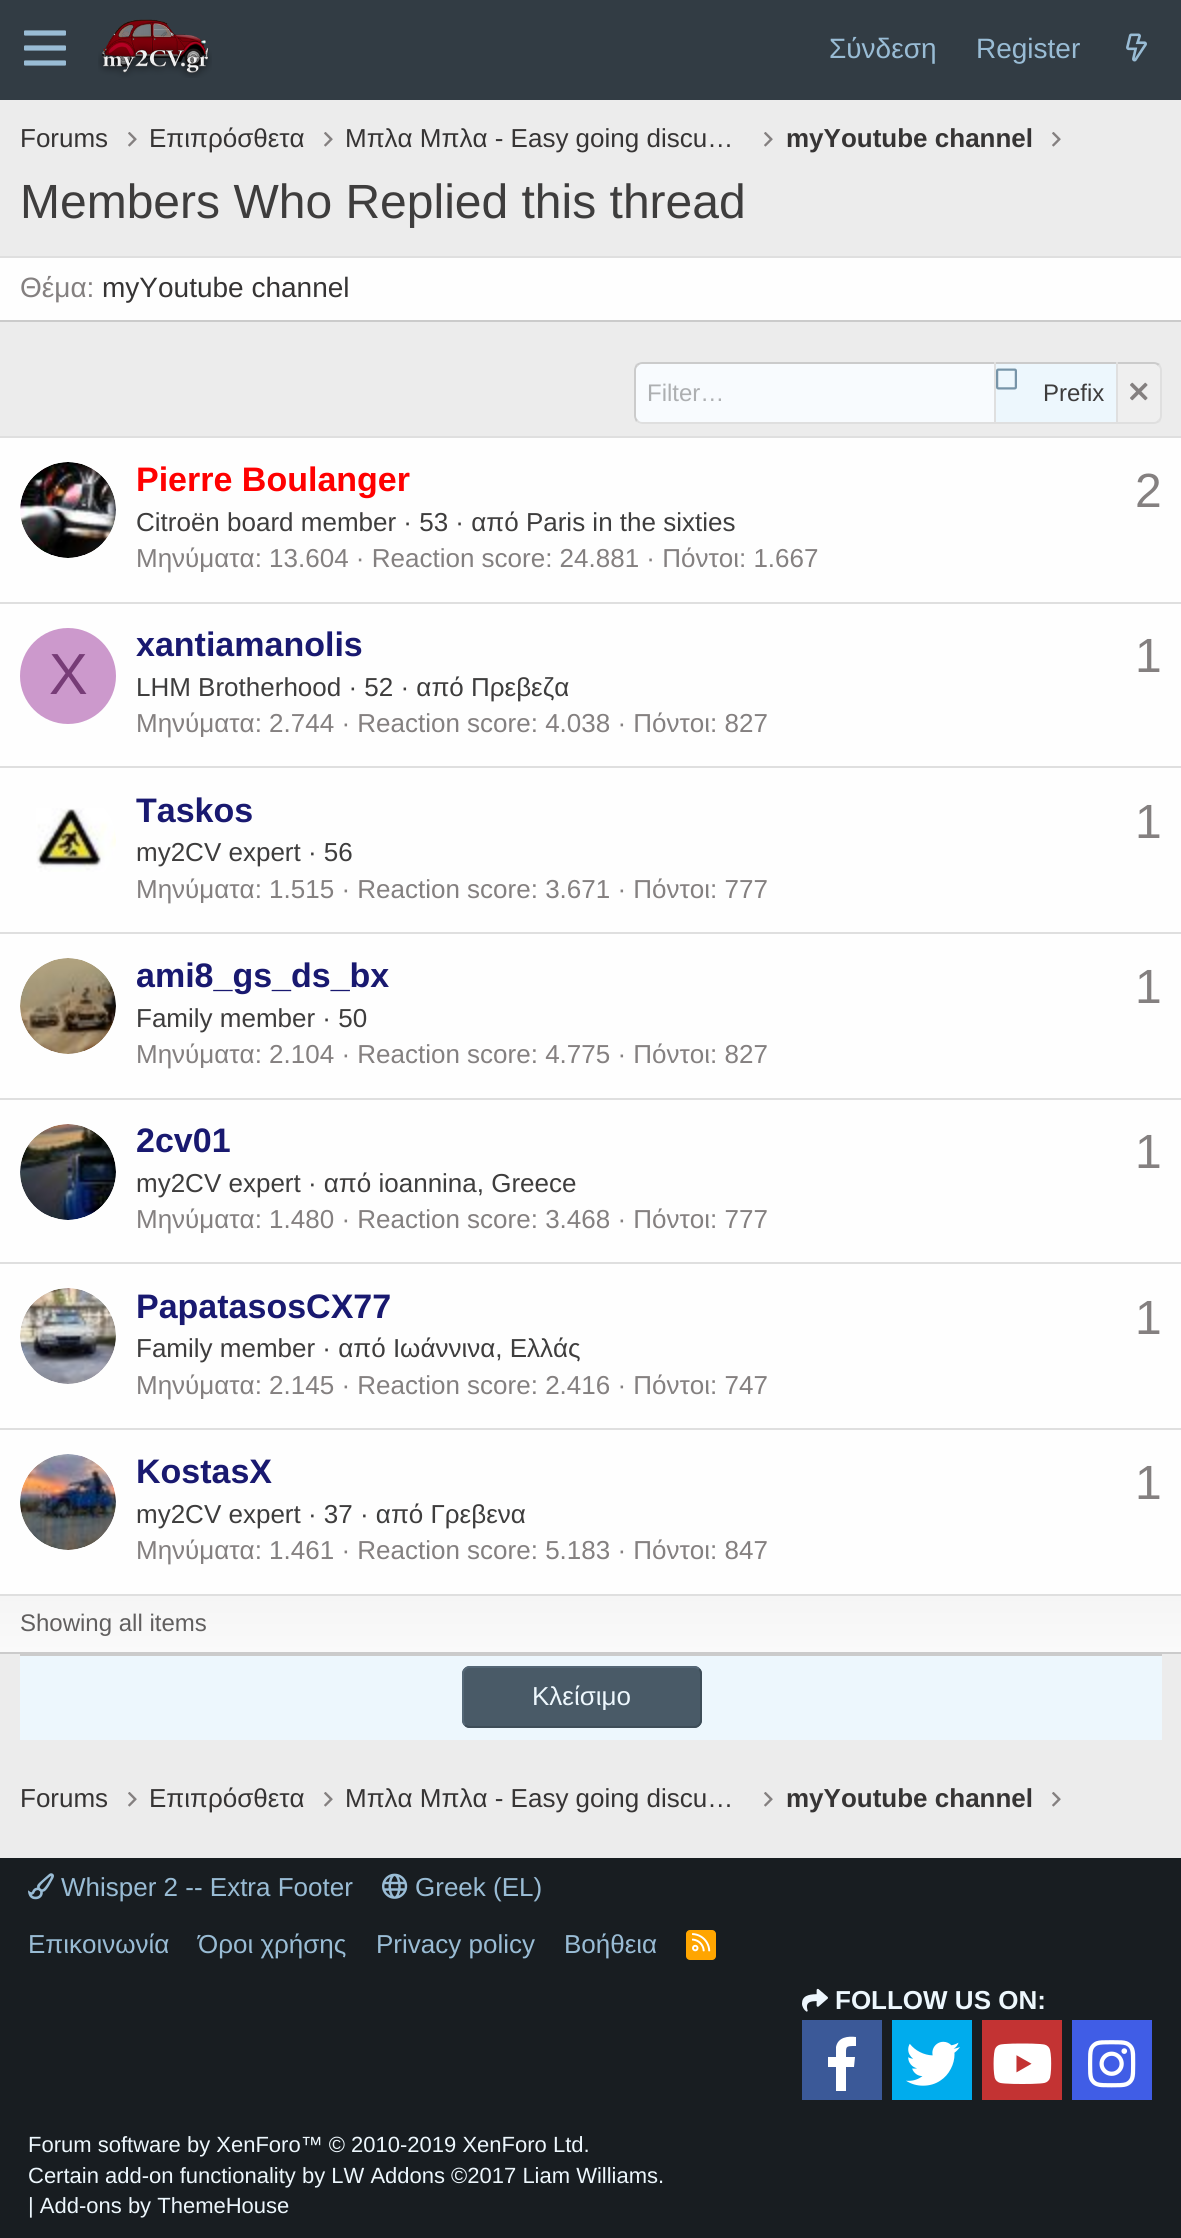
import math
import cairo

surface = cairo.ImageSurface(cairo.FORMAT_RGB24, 1181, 2238)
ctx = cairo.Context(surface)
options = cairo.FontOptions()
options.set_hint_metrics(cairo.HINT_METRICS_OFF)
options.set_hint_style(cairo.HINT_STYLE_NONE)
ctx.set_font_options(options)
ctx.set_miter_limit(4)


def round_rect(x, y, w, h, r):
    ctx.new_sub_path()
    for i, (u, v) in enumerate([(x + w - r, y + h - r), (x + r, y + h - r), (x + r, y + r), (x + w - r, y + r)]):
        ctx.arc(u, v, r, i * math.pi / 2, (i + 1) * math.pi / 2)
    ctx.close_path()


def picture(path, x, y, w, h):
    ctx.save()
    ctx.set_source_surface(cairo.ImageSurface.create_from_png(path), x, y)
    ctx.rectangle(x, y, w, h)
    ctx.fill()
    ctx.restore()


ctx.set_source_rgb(0.925, 0.925, 0.925)
ctx.paint()
ctx.set_source_rgb(0.196, 0.235, 0.267)
ctx.rectangle(0, 0, 1181, 100)
ctx.fill()
picture("img1.png", 24, 30, 42, 36)
picture("img2.png", 98, 19, 114, 59)
ctx.select_font_face("Liberation Sans")
ctx.set_font_size(28)
ctx.set_source_rgb(0.6, 0.737, 0.835)
ctx.move_to(829, 58)
ctx.show_text("Σύνδεση")
ctx.move_to(976, 58)
ctx.show_text("Register")
picture("img3.png", 1126, 33, 21, 29)
ctx.set_font_size(26)
ctx.set_source_rgb(0.212, 0.204, 0.204)
ctx.move_to(20, 147)
ctx.show_text("Forums")
picture("img4.png", 128, 132, 9, 15)
ctx.move_to(149, 147)
ctx.show_text("Επιπρόσθετα")
picture("img4.png", 324, 132, 9, 15)
ctx.move_to(345, 147)
ctx.show_text("Μπλα Μπλα - Easy going discu…")
picture("img4.png", 764, 132, 9, 15)
ctx.select_font_face("Liberation Sans", cairo.FONT_SLANT_NORMAL, cairo.FONT_WEIGHT_BOLD)
ctx.move_to(786, 147)
ctx.show_text("myYoutube channel")
picture("img4.png", 1052, 132, 9, 15)
ctx.select_font_face("Liberation Sans")
ctx.set_font_size(48)
ctx.set_source_rgb(0.243, 0.239, 0.239)
ctx.move_to(20, 218)
ctx.show_text("Members Who Replied this thread")
ctx.set_source_rgb(0.996, 0.996, 0.996)
ctx.rectangle(0, 258, 1181, 62)
ctx.fill()
ctx.set_source_rgb(0.875, 0.875, 0.875)
ctx.rectangle(0, 256, 1181, 2)
ctx.fill()
ctx.set_source_rgb(0.796, 0.796, 0.796)
ctx.rectangle(0, 320, 1181, 2)
ctx.fill()
ctx.set_font_size(28)
ctx.set_source_rgb(0.518, 0.502, 0.502)
ctx.move_to(20, 297)
ctx.show_text("Θέμα:")
ctx.set_source_rgb(0.212, 0.204, 0.204)
ctx.move_to(102, 297)
ctx.show_text("myYoutube channel")
ctx.set_source_rgb(0.969, 0.984, 0.996)
ctx.new_path()
ctx.move_to(642, 362)
ctx.line_to(994, 362)
ctx.line_to(994, 424)
ctx.line_to(642, 424)
ctx.curve_to(637.5, 424, 634, 420.5, 634, 416)
ctx.line_to(634, 370)
ctx.curve_to(634, 365.5, 637.5, 362, 642, 362)
ctx.close_path()
ctx.fill()
ctx.set_source_rgb(0.796, 0.796, 0.796)
ctx.new_path()
ctx.move_to(642, 362)
ctx.curve_to(640, 362, 638, 363, 636, 364)
ctx.line_to(638, 366)
ctx.curve_to(639, 365, 640, 364, 642, 364)
ctx.line_to(994, 364)
ctx.line_to(994, 362)
ctx.close_path()
ctx.fill()
ctx.set_source_rgb(0.875, 0.875, 0.875)
ctx.new_path()
ctx.move_to(994, 424)
ctx.line_to(994, 422)
ctx.line_to(642, 422)
ctx.curve_to(640, 422, 639, 421, 638, 420)
ctx.line_to(636, 422)
ctx.curve_to(638, 423, 640, 424, 642, 424)
ctx.close_path()
ctx.fill()
ctx.set_source_rgb(0.796, 0.796, 0.796)
ctx.new_path()
ctx.move_to(634, 370)
ctx.line_to(634, 416)
ctx.curve_to(634, 418, 635, 420, 636, 422)
ctx.line_to(638, 420)
ctx.curve_to(637, 419, 636, 418, 636, 416)
ctx.line_to(636, 370)
ctx.curve_to(636, 368, 637, 367, 638, 366)
ctx.line_to(636, 364)
ctx.curve_to(635, 366, 634, 368, 634, 370)
ctx.close_path()
ctx.fill()
ctx.set_font_size(24)
ctx.set_source_rgb(0.678, 0.686, 0.694)
ctx.move_to(647, 401)
ctx.show_text("Filter…")
ctx.set_source_rgb(0.929, 0.965, 0.992)
ctx.rectangle(996, 364, 120, 58)
ctx.fill()
ctx.set_source_rgb(0.796, 0.796, 0.796)
ctx.rectangle(994, 362, 124, 2)
ctx.fill()
ctx.set_source_rgb(0.875, 0.875, 0.875)
ctx.rectangle(1116, 362, 2, 62)
ctx.fill()
ctx.rectangle(994, 422, 124, 2)
ctx.fill()
ctx.rectangle(994, 362, 2, 62)
ctx.fill()
picture("img5.png", 996, 368, 21, 22)
ctx.set_source_rgb(0.243, 0.239, 0.239)
ctx.move_to(1043, 401)
ctx.show_text("Prefix")
ctx.set_source_rgb(0.937, 0.937, 0.937)
ctx.new_path()
ctx.move_to(1118, 362)
ctx.line_to(1154, 362)
ctx.curve_to(1158.5, 362, 1162, 365.5, 1162, 370)
ctx.line_to(1162, 416)
ctx.curve_to(1162, 420.5, 1158.5, 424, 1154, 424)
ctx.line_to(1118, 424)
ctx.close_path()
ctx.fill()
ctx.set_source_rgb(0.796, 0.796, 0.796)
ctx.new_path()
ctx.move_to(1118, 362)
ctx.line_to(1118, 364)
ctx.line_to(1154, 364)
ctx.curve_to(1156, 364, 1157, 365, 1158, 366)
ctx.line_to(1160, 364)
ctx.curve_to(1158, 363, 1156, 362, 1154, 362)
ctx.close_path()
ctx.fill()
ctx.set_source_rgb(0.875, 0.875, 0.875)
ctx.new_path()
ctx.move_to(1158, 420)
ctx.curve_to(1159, 419, 1160, 418, 1160, 416)
ctx.line_to(1160, 370)
ctx.curve_to(1160, 368, 1159, 367, 1158, 366)
ctx.line_to(1160, 364)
ctx.curve_to(1161, 366, 1162, 368, 1162, 370)
ctx.line_to(1162, 416)
ctx.curve_to(1162, 418, 1161, 420, 1160, 422)
ctx.close_path()
ctx.fill()
ctx.new_path()
ctx.move_to(1118, 422)
ctx.line_to(1118, 424)
ctx.line_to(1154, 424)
ctx.curve_to(1156, 424, 1158, 423, 1160, 422)
ctx.line_to(1158, 420)
ctx.curve_to(1157, 421, 1156, 422, 1154, 422)
ctx.close_path()
ctx.fill()
picture("img6.png", 1130, 382, 18, 19)
ctx.set_source_rgb(0.996, 0.996, 0.996)
ctx.rectangle(0, 438, 1181, 1156)
ctx.fill()
ctx.set_source_rgb(0.875, 0.875, 0.875)
ctx.rectangle(0, 436, 1181, 2)
ctx.fill()
ctx.set_source_rgb(0.796, 0.796, 0.796)
ctx.rectangle(0, 1652, 1181, 2)
ctx.fill()
picture("img7.png", 20, 462, 96, 96)
ctx.select_font_face("Liberation Sans", cairo.FONT_SLANT_NORMAL, cairo.FONT_WEIGHT_BOLD)
ctx.set_font_size(34)
ctx.set_source_rgb(1, 0, 0)
ctx.move_to(136, 491)
ctx.show_text("Pierre Boulanger")
ctx.select_font_face("Liberation Sans")
ctx.set_font_size(48)
ctx.set_source_rgb(0.518, 0.502, 0.502)
ctx.move_to(1135, 507)
ctx.show_text("2")
ctx.set_font_size(26)
ctx.set_source_rgb(0.243, 0.239, 0.239)
ctx.move_to(136, 531)
ctx.show_text("Citroën board member · 53 · από Paris in the sixties")
ctx.set_source_rgb(0.518, 0.502, 0.502)
ctx.move_to(136, 567)
ctx.show_text("Μηνύματα: 13.604 · Reaction score: 24.881 · Πόντοι: 1.667")
ctx.set_source_rgb(0.875, 0.875, 0.875)
ctx.rectangle(0, 602, 1181, 2)
ctx.fill()
ctx.set_source_rgb(0.8, 0.6, 0.8)
ctx.arc(68, 676, 48, 0, 2 * math.pi)
ctx.fill()
ctx.set_font_size(58)
ctx.set_source_rgb(0.467, 0.235, 0.467)
ctx.move_to(49, 694)
ctx.show_text("X")
ctx.select_font_face("Liberation Sans", cairo.FONT_SLANT_NORMAL, cairo.FONT_WEIGHT_BOLD)
ctx.set_font_size(34)
ctx.set_source_rgb(0.098, 0.098, 0.439)
ctx.move_to(136, 656)
ctx.show_text("xantiamanolis")
ctx.select_font_face("Liberation Sans")
ctx.set_font_size(48)
ctx.set_source_rgb(0.518, 0.502, 0.502)
ctx.move_to(1135, 672)
ctx.show_text("1")
ctx.set_font_size(26)
ctx.set_source_rgb(0.243, 0.239, 0.239)
ctx.move_to(136, 696)
ctx.show_text("LHM Brotherhood · 52 · από Πρεβεζα")
ctx.set_source_rgb(0.518, 0.502, 0.502)
ctx.move_to(136, 732)
ctx.show_text("Μηνύματα: 2.744 · Reaction score: 4.038 · Πόντοι: 827")
ctx.set_source_rgb(0.875, 0.875, 0.875)
ctx.rectangle(0, 766, 1181, 2)
ctx.fill()
picture("img8.png", 36, 808, 80, 64)
ctx.select_font_face("Liberation Sans", cairo.FONT_SLANT_NORMAL, cairo.FONT_WEIGHT_BOLD)
ctx.set_font_size(34)
ctx.set_source_rgb(0.098, 0.098, 0.439)
ctx.move_to(136, 822)
ctx.show_text("Taskos")
ctx.select_font_face("Liberation Sans")
ctx.set_font_size(48)
ctx.set_source_rgb(0.518, 0.502, 0.502)
ctx.move_to(1135, 838)
ctx.show_text("1")
ctx.set_font_size(26)
ctx.set_source_rgb(0.243, 0.239, 0.239)
ctx.move_to(136, 861)
ctx.show_text("my2CV expert · 56")
ctx.set_source_rgb(0.518, 0.502, 0.502)
ctx.move_to(136, 898)
ctx.show_text("Μηνύματα: 1.515 · Reaction score: 3.671 · Πόντοι: 777")
ctx.set_source_rgb(0.875, 0.875, 0.875)
ctx.rectangle(0, 932, 1181, 2)
ctx.fill()
picture("img9.png", 20, 958, 96, 96)
ctx.select_font_face("Liberation Sans", cairo.FONT_SLANT_NORMAL, cairo.FONT_WEIGHT_BOLD)
ctx.set_font_size(34)
ctx.set_source_rgb(0.098, 0.098, 0.439)
ctx.move_to(136, 987)
ctx.show_text("ami8_gs_ds_bx")
ctx.select_font_face("Liberation Sans")
ctx.set_font_size(48)
ctx.set_source_rgb(0.518, 0.502, 0.502)
ctx.move_to(1135, 1003)
ctx.show_text("1")
ctx.set_font_size(26)
ctx.set_source_rgb(0.243, 0.239, 0.239)
ctx.move_to(136, 1027)
ctx.show_text("Family member · 50")
ctx.set_source_rgb(0.518, 0.502, 0.502)
ctx.move_to(136, 1063)
ctx.show_text("Μηνύματα: 2.104 · Reaction score: 4.775 · Πόντοι: 827")
ctx.set_source_rgb(0.875, 0.875, 0.875)
ctx.rectangle(0, 1098, 1181, 2)
ctx.fill()
picture("img10.png", 20, 1124, 96, 96)
ctx.select_font_face("Liberation Sans", cairo.FONT_SLANT_NORMAL, cairo.FONT_WEIGHT_BOLD)
ctx.set_font_size(34)
ctx.set_source_rgb(0.098, 0.098, 0.439)
ctx.move_to(136, 1152)
ctx.show_text("2cv01")
ctx.select_font_face("Liberation Sans")
ctx.set_font_size(48)
ctx.set_source_rgb(0.518, 0.502, 0.502)
ctx.move_to(1135, 1168)
ctx.show_text("1")
ctx.set_font_size(26)
ctx.set_source_rgb(0.243, 0.239, 0.239)
ctx.move_to(136, 1192)
ctx.show_text("my2CV expert · από ioannina, Greece")
ctx.set_source_rgb(0.518, 0.502, 0.502)
ctx.move_to(136, 1228)
ctx.show_text("Μηνύματα: 1.480 · Reaction score: 3.468 · Πόντοι: 777")
ctx.set_source_rgb(0.875, 0.875, 0.875)
ctx.rectangle(0, 1262, 1181, 2)
ctx.fill()
picture("img11.png", 20, 1288, 96, 96)
ctx.select_font_face("Liberation Sans", cairo.FONT_SLANT_NORMAL, cairo.FONT_WEIGHT_BOLD)
ctx.set_font_size(34)
ctx.set_source_rgb(0.098, 0.098, 0.439)
ctx.move_to(136, 1318)
ctx.show_text("PapatasosCX77")
ctx.select_font_face("Liberation Sans")
ctx.set_font_size(48)
ctx.set_source_rgb(0.518, 0.502, 0.502)
ctx.move_to(1135, 1334)
ctx.show_text("1")
ctx.set_font_size(26)
ctx.set_source_rgb(0.243, 0.239, 0.239)
ctx.move_to(136, 1357)
ctx.show_text("Family member · από Ιωάννινα, Ελλάς")
ctx.set_source_rgb(0.518, 0.502, 0.502)
ctx.move_to(136, 1394)
ctx.show_text("Μηνύματα: 2.145 · Reaction score: 2.416 · Πόντοι: 747")
ctx.set_source_rgb(0.875, 0.875, 0.875)
ctx.rectangle(0, 1428, 1181, 2)
ctx.fill()
picture("img12.png", 20, 1454, 96, 96)
ctx.select_font_face("Liberation Sans", cairo.FONT_SLANT_NORMAL, cairo.FONT_WEIGHT_BOLD)
ctx.set_font_size(34)
ctx.set_source_rgb(0.098, 0.098, 0.439)
ctx.move_to(136, 1483)
ctx.show_text("KostasX")
ctx.select_font_face("Liberation Sans")
ctx.set_font_size(48)
ctx.set_source_rgb(0.518, 0.502, 0.502)
ctx.move_to(1135, 1499)
ctx.show_text("1")
ctx.set_font_size(26)
ctx.set_source_rgb(0.243, 0.239, 0.239)
ctx.move_to(136, 1523)
ctx.show_text("my2CV expert · 37 · από Γρεβενα")
ctx.set_source_rgb(0.518, 0.502, 0.502)
ctx.move_to(136, 1559)
ctx.show_text("Μηνύματα: 1.461 · Reaction score: 5.183 · Πόντοι: 847")
gradient = cairo.LinearGradient(591, 1596, 591, 1652)
gradient.add_color_stop_rgba(0, 0.961, 0.961, 0.961, 1)
gradient.add_color_stop_rgba(1, 0.98, 0.98, 0.98, 1)
ctx.set_source(gradient)
ctx.rectangle(0, 1596, 1181, 56)
ctx.fill()
ctx.set_source_rgb(0.875, 0.875, 0.875)
ctx.rectangle(0, 1594, 1181, 2)
ctx.fill()
ctx.set_font_size(24)
ctx.set_source_rgb(0.38, 0.373, 0.373)
ctx.move_to(20, 1631)
ctx.show_text("Showing all items")
ctx.set_source_rgb(0.929, 0.965, 0.992)
ctx.rectangle(20, 1656, 1142, 84)
ctx.fill()
ctx.set_source_rgb(0.796, 0.796, 0.796)
ctx.rectangle(20, 1654, 1142, 2)
ctx.fill()
ctx.set_source_rgb(0.286, 0.353, 0.404)
round_rect(462, 1666, 240, 62, 8)
ctx.fill()
ctx.new_path()
ctx.move_to(699, 1669)
ctx.curve_to(700.5, 1670.5, 701, 1672, 701, 1674)
ctx.line_to(701, 1720)
ctx.curve_to(701, 1722, 700.5, 1723.5, 699, 1725)
ctx.curve_to(697.5, 1726.5, 696, 1727, 694, 1727)
ctx.line_to(470, 1727)
ctx.curve_to(468, 1727, 466.5, 1726.5, 465, 1725)
ctx.set_source_rgb(0.243, 0.302, 0.345)
ctx.stroke()
ctx.new_path()
ctx.move_to(465, 1725)
ctx.curve_to(463.5, 1723.5, 463, 1722, 463, 1720)
ctx.line_to(463, 1674)
ctx.curve_to(463, 1672, 463.5, 1670.5, 465, 1669)
ctx.curve_to(466.5, 1667.5, 468, 1667, 470, 1667)
ctx.line_to(694, 1667)
ctx.curve_to(696, 1667, 697.5, 1667.5, 699, 1669)
ctx.set_source_rgb(0.329, 0.404, 0.463)
ctx.stroke()
ctx.set_font_size(26)
ctx.set_source_rgb(0.929, 0.965, 0.992)
ctx.move_to(532, 1705)
ctx.show_text("Κλείσιμο")
ctx.set_source_rgb(0.212, 0.204, 0.204)
ctx.move_to(20, 1807)
ctx.show_text("Forums")
picture("img4.png", 128, 1792, 9, 15)
ctx.move_to(149, 1807)
ctx.show_text("Επιπρόσθετα")
picture("img4.png", 324, 1792, 9, 15)
ctx.move_to(345, 1807)
ctx.show_text("Μπλα Μπλα - Easy going discu…")
picture("img4.png", 764, 1792, 9, 15)
ctx.select_font_face("Liberation Sans", cairo.FONT_SLANT_NORMAL, cairo.FONT_WEIGHT_BOLD)
ctx.move_to(786, 1807)
ctx.show_text("myYoutube channel")
picture("img4.png", 1052, 1792, 9, 15)
ctx.set_source_rgb(0.094, 0.114, 0.129)
ctx.rectangle(0, 1858, 1181, 380)
ctx.fill()
picture("img13.png", 28, 1873, 26, 27)
ctx.select_font_face("Liberation Sans")
ctx.set_source_rgb(0.6, 0.737, 0.835)
ctx.move_to(61, 1896)
ctx.show_text("Whisper 2 -- Extra Footer")
picture("img14.png", 382, 1873, 26, 26)
ctx.move_to(415, 1896)
ctx.show_text("Greek (EL)")
ctx.move_to(28, 1953)
ctx.show_text("Επικοινωνία")
ctx.move_to(198, 1953)
ctx.show_text("Όροι χρήσης")
ctx.move_to(376, 1953)
ctx.show_text("Privacy policy")
ctx.move_to(564, 1953)
ctx.show_text("Βοήθεια")
ctx.set_source_rgb(1, 0.647, 0)
round_rect(686, 1930, 30, 30, 4)
ctx.fill()
picture("img15.png", 692, 1933, 19, 19)
picture("img16.png", 802, 1988, 26, 24)
ctx.select_font_face("Liberation Sans", cairo.FONT_SLANT_NORMAL, cairo.FONT_WEIGHT_BOLD)
ctx.set_source_rgb(0.929, 0.965, 0.992)
ctx.move_to(835, 2009)
ctx.show_text("FOLLOW US ON:")
ctx.set_source_rgb(0.231, 0.349, 0.596)
ctx.rectangle(802, 2020, 80, 80)
ctx.fill()
ctx.set_source_rgb(1, 1, 1)
ctx.new_path()
ctx.move_to(836, 2091)
ctx.line_to(836, 2067)
ctx.line_to(828, 2067)
ctx.line_to(828, 2057)
ctx.line_to(836, 2057)
ctx.line_to(836, 2047)
ctx.curve_to(838, 2037, 848, 2036, 856, 2037)
ctx.line_to(856, 2046)
ctx.curve_to(845, 2046, 846, 2046, 846, 2057)
ctx.line_to(855, 2057)
ctx.line_to(854, 2067)
ctx.line_to(846, 2067)
ctx.line_to(846, 2091)
ctx.close_path()
ctx.fill()
ctx.set_source_rgb(0, 0.675, 0.929)
ctx.rectangle(892, 2020, 80, 80)
ctx.fill()
picture("img17.png", 906, 2041, 54, 45)
ctx.set_source_rgb(0.765, 0.2, 0.2)
ctx.rectangle(982, 2020, 80, 80)
ctx.fill()
picture("img18.png", 993, 2043, 59, 41)
ctx.set_source_rgb(0.251, 0.365, 0.902)
ctx.rectangle(1072, 2020, 80, 80)
ctx.fill()
picture("img19.png", 1088, 2040, 48, 48)
ctx.select_font_face("Liberation Sans")
ctx.set_font_size(22)
ctx.set_source_rgb(0.929, 0.965, 0.992)
ctx.move_to(28, 2152)
ctx.show_text("Forum software by XenForo™ © 2010-2019 XenForo Ltd.")
ctx.move_to(28, 2183)
ctx.show_text("Certain add-on functionality by LW Addons ©2017 Liam Williams.")
ctx.move_to(28, 2213)
ctx.show_text("| Add-ons by ThemeHouse")
surface.write_to_png("page.png")
